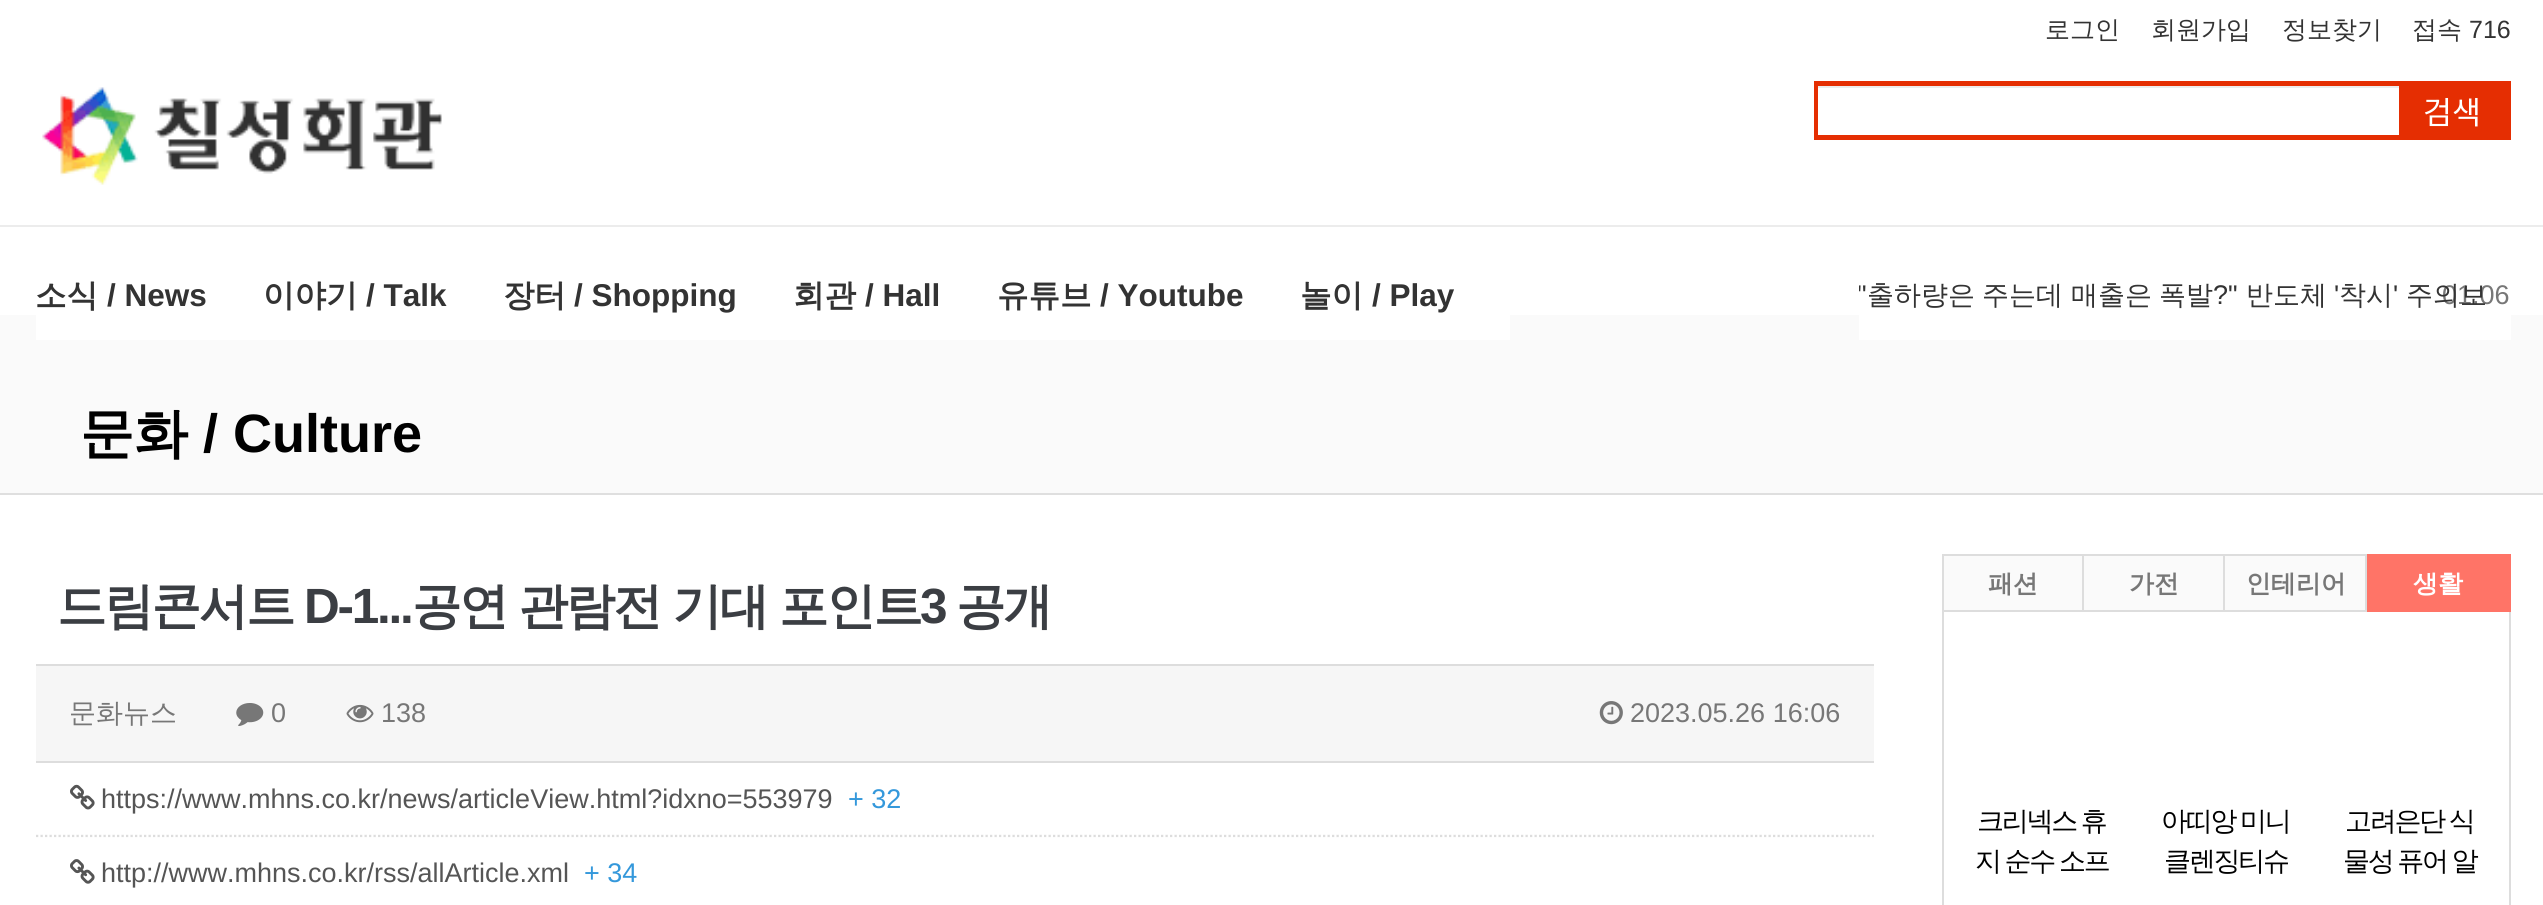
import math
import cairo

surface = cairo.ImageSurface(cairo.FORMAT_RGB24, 2543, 905)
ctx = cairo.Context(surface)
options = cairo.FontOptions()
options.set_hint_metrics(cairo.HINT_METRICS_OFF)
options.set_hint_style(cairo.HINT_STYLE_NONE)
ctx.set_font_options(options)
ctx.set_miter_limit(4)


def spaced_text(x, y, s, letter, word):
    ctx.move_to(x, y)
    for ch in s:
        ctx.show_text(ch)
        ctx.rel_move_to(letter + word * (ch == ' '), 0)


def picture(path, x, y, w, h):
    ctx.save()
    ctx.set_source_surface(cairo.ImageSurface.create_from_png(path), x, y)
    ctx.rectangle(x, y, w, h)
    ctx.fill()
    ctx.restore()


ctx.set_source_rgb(1, 1, 1)
ctx.paint()
ctx.select_font_face("WenQuanYi Zen Hei Medium")
ctx.set_font_size(25)
ctx.set_source_rgb(0.2, 0.2, 0.2)
ctx.move_to(2045, 38)
ctx.show_text("로그인")
ctx.move_to(2151, 38)
ctx.show_text("회원가입")
ctx.move_to(2282, 38)
ctx.show_text("정보찾기")
ctx.move_to(2412, 38)
ctx.show_text("접속")
ctx.select_font_face("Liberation Sans")
ctx.move_to(2469, 38)
ctx.show_text("716")
picture("img1.png", 42, 87, 400, 98)
ctx.set_source_rgb(0.898, 0.18, 0.008)
ctx.rectangle(1814, 81, 697, 59)
ctx.fill()
ctx.set_source_rgb(1, 1, 1)
ctx.rectangle(1818, 88, 581, 47)
ctx.fill()
ctx.set_source_rgb(0.925, 0.925, 0.925)
ctx.rectangle(1818, 86, 581, 2)
ctx.fill()
ctx.select_font_face("Noto Sans KR")
ctx.set_font_size(31.5)
ctx.set_source_rgb(1, 1, 1)
ctx.move_to(2423, 124)
ctx.show_text("검색")
ctx.set_source_rgb(0.922, 0.922, 0.922)
ctx.rectangle(0, 225, 2543, 2)
ctx.fill()
ctx.set_source_rgb(0.98, 0.98, 0.98)
ctx.rectangle(0, 315, 2543, 178)
ctx.fill()
ctx.set_source_rgb(1, 1, 1)
ctx.rectangle(36, 315, 1474, 25)
ctx.fill()
ctx.select_font_face("WenQuanYi Zen Hei", cairo.FONT_SLANT_NORMAL, cairo.FONT_WEIGHT_BOLD)
ctx.set_source_rgb(0.2, 0.2, 0.2)
ctx.move_to(35, 306)
ctx.show_text("소식")
ctx.select_font_face("Liberation Sans", cairo.FONT_SLANT_NORMAL, cairo.FONT_WEIGHT_BOLD)
ctx.move_to(107, 306)
ctx.show_text("/ News")
ctx.select_font_face("WenQuanYi Zen Hei", cairo.FONT_SLANT_NORMAL, cairo.FONT_WEIGHT_BOLD)
ctx.move_to(263, 306)
ctx.show_text("이야기")
ctx.select_font_face("Liberation Sans", cairo.FONT_SLANT_NORMAL, cairo.FONT_WEIGHT_BOLD)
ctx.move_to(366, 306)
ctx.show_text("/ Talk")
ctx.select_font_face("WenQuanYi Zen Hei", cairo.FONT_SLANT_NORMAL, cairo.FONT_WEIGHT_BOLD)
ctx.move_to(503, 306)
ctx.show_text("장터")
ctx.select_font_face("Liberation Sans", cairo.FONT_SLANT_NORMAL, cairo.FONT_WEIGHT_BOLD)
ctx.move_to(574, 306)
ctx.show_text("/ Shopping")
ctx.select_font_face("WenQuanYi Zen Hei", cairo.FONT_SLANT_NORMAL, cairo.FONT_WEIGHT_BOLD)
ctx.move_to(793, 306)
ctx.show_text("회관")
ctx.select_font_face("Liberation Sans", cairo.FONT_SLANT_NORMAL, cairo.FONT_WEIGHT_BOLD)
ctx.move_to(865, 306)
ctx.show_text("/ Hall")
ctx.select_font_face("WenQuanYi Zen Hei", cairo.FONT_SLANT_NORMAL, cairo.FONT_WEIGHT_BOLD)
ctx.move_to(997, 306)
ctx.show_text("유튜브")
ctx.select_font_face("Liberation Sans", cairo.FONT_SLANT_NORMAL, cairo.FONT_WEIGHT_BOLD)
ctx.move_to(1100, 306)
ctx.show_text("/ Youtube")
ctx.select_font_face("WenQuanYi Zen Hei", cairo.FONT_SLANT_NORMAL, cairo.FONT_WEIGHT_BOLD)
ctx.move_to(1300, 306)
ctx.show_text("놀이")
ctx.select_font_face("Liberation Sans", cairo.FONT_SLANT_NORMAL, cairo.FONT_WEIGHT_BOLD)
ctx.move_to(1372, 306)
ctx.show_text("/ Play")
ctx.set_source_rgb(1, 1, 1)
ctx.rectangle(1859, 315, 652, 25)
ctx.fill()
ctx.save()
ctx.rectangle(1859, 272, 652, 45)
ctx.clip()
ctx.select_font_face("Liberation Sans")
ctx.set_font_size(27)
ctx.set_source_rgb(0.2, 0.2, 0.2)
ctx.move_to(1857, 304)
ctx.show_text("\"")
ctx.restore()
ctx.select_font_face("WenQuanYi Zen Hei Medium")
ctx.set_font_size(27)
ctx.set_source_rgb(0.2, 0.2, 0.2)
ctx.move_to(1867, 304)
ctx.show_text("출하량은")
ctx.move_to(1982, 304)
ctx.show_text("주는데")
ctx.move_to(2071, 304)
ctx.show_text("매출은")
ctx.move_to(2159, 304)
ctx.show_text("폭발")
ctx.select_font_face("Liberation Sans")
ctx.move_to(2213, 304)
ctx.show_text("?\"")
ctx.select_font_face("WenQuanYi Zen Hei Medium")
ctx.move_to(2246, 304)
ctx.show_text("반도체")
ctx.select_font_face("Liberation Sans")
ctx.move_to(2334, 304)
ctx.show_text("'")
ctx.select_font_face("WenQuanYi Zen Hei Medium")
ctx.move_to(2339, 304)
ctx.show_text("착시")
ctx.select_font_face("Liberation Sans")
ctx.move_to(2393, 304)
ctx.show_text("'")
ctx.set_source_rgb(0.467, 0.467, 0.467)
ctx.move_to(2442, 304)
ctx.show_text("01.06")
ctx.select_font_face("WenQuanYi Zen Hei Medium")
ctx.set_source_rgb(0.2, 0.2, 0.2)
ctx.move_to(2406, 304)
ctx.show_text("주의보")
ctx.set_source_rgb(0.875, 0.875, 0.875)
ctx.rectangle(0, 493, 2543, 2)
ctx.fill()
ctx.select_font_face("WenQuanYi Zen Hei", cairo.FONT_SLANT_NORMAL, cairo.FONT_WEIGHT_BOLD)
ctx.set_font_size(54)
ctx.set_source_rgb(0, 0, 0)
ctx.move_to(80, 452)
ctx.show_text("문화")
ctx.select_font_face("Liberation Sans", cairo.FONT_SLANT_NORMAL, cairo.FONT_WEIGHT_BOLD)
ctx.move_to(203, 452)
ctx.show_text("/ Culture")
ctx.select_font_face("WenQuanYi Zen Hei", cairo.FONT_SLANT_NORMAL, cairo.FONT_WEIGHT_BOLD)
ctx.set_font_size(49.5)
ctx.set_source_rgb(0.231, 0.243, 0.263)
spaced_text(57, 623, "드림콘서트", -2.25, 0)
ctx.select_font_face("Liberation Sans", cairo.FONT_SLANT_NORMAL, cairo.FONT_WEIGHT_BOLD)
spaced_text(304, 623, "D-1...", -2.25, 0)
ctx.select_font_face("WenQuanYi Zen Hei", cairo.FONT_SLANT_NORMAL, cairo.FONT_WEIGHT_BOLD)
spaced_text(412, 623, "공연 관람전 기대 포인트", -2.25, -0.5)
ctx.select_font_face("Liberation Sans", cairo.FONT_SLANT_NORMAL, cairo.FONT_WEIGHT_BOLD)
spaced_text(920, 623, "3", -2.25, 0)
ctx.select_font_face("WenQuanYi Zen Hei", cairo.FONT_SLANT_NORMAL, cairo.FONT_WEIGHT_BOLD)
spaced_text(956, 623, "공개", -2.25, 0)
ctx.set_source_rgb(0.867, 0.867, 0.867)
ctx.rectangle(36, 664, 1838, 2)
ctx.fill()
ctx.set_source_rgb(0.961, 0.961, 0.961)
ctx.rectangle(36, 666, 1838, 95)
ctx.fill()
ctx.set_source_rgb(0.867, 0.867, 0.867)
ctx.rectangle(36, 761, 1838, 2)
ctx.fill()
ctx.select_font_face("WenQuanYi Zen Hei Medium")
ctx.set_font_size(27)
ctx.set_source_rgb(0.467, 0.467, 0.467)
ctx.move_to(69, 722)
ctx.show_text("문화뉴스")
picture("img2.png", 236, 703, 28, 23)
ctx.select_font_face("Liberation Sans")
ctx.move_to(271, 722)
ctx.show_text("0")
picture("img3.png", 346, 704, 28, 19)
ctx.move_to(381, 722)
ctx.show_text("138")
picture("img4.png", 1599, 701, 24, 24)
ctx.move_to(1630, 722)
ctx.show_text("2023.05.26 16:06")
ctx.new_path()
ctx.move_to(36, 836)
ctx.line_to(1874, 836)
ctx.set_source_rgb(0.867, 0.867, 0.867)
ctx.set_line_width(2.2)
ctx.set_dash([2.25, 2.25])
ctx.stroke()
picture("img5.png", 70, 784, 25, 26)
ctx.set_source_rgb(0.333, 0.333, 0.333)
ctx.move_to(101, 808)
ctx.show_text("https://www.mhns.co.kr/news/articleView.html?idxno=553979")
ctx.set_source_rgb(0.204, 0.596, 0.859)
ctx.move_to(848, 808)
ctx.show_text("+ 32")
ctx.set_source_rgb(1, 1, 1)
ctx.rectangle(36, 835, 1838, 3)
ctx.fill()
ctx.new_path()
ctx.move_to(36, 836)
ctx.line_to(1874, 836)
ctx.set_source_rgb(0.867, 0.867, 0.867)
ctx.stroke()
picture("img6.png", 70, 859, 25, 25)
ctx.set_source_rgb(0.333, 0.333, 0.333)
ctx.move_to(101, 882)
ctx.show_text("http://www.mhns.co.kr/rss/allArticle.xml")
ctx.set_source_rgb(0.204, 0.596, 0.859)
ctx.move_to(584, 882)
ctx.show_text("+ 34")
ctx.set_source_rgb(0.867, 0.867, 0.867)
ctx.rectangle(1942, 610, 2, 295)
ctx.fill()
ctx.set_source_rgb(0.98, 0.98, 0.98)
ctx.rectangle(1943, 555, 140, 56)
ctx.fill_preserve()
ctx.set_source_rgb(0.867, 0.867, 0.867)
ctx.set_line_width(2)
ctx.set_dash([])
ctx.stroke()
ctx.select_font_face("WenQuanYi Zen Hei", cairo.FONT_SLANT_NORMAL, cairo.FONT_WEIGHT_BOLD)
ctx.set_font_size(25)
ctx.set_source_rgb(0.467, 0.467, 0.467)
ctx.move_to(1988, 592)
ctx.show_text("패션")
ctx.set_source_rgb(0.98, 0.98, 0.98)
ctx.rectangle(2084, 556, 139, 54)
ctx.fill()
ctx.set_source_rgb(0.867, 0.867, 0.867)
ctx.rectangle(2084, 554, 283, 2)
ctx.fill()
ctx.rectangle(2223, 554, 2, 58)
ctx.fill()
ctx.rectangle(2084, 610, 141, 2)
ctx.fill()
ctx.set_source_rgb(0.467, 0.467, 0.467)
ctx.move_to(2129, 592)
ctx.show_text("가전")
ctx.set_source_rgb(0.98, 0.98, 0.98)
ctx.rectangle(2225, 556, 140, 54)
ctx.fill()
ctx.set_source_rgb(0.867, 0.867, 0.867)
ctx.rectangle(2365, 554, 2, 58)
ctx.fill()
ctx.rectangle(2225, 610, 142, 2)
ctx.fill()
ctx.set_source_rgb(0.467, 0.467, 0.467)
ctx.move_to(2246, 592)
ctx.show_text("인테리어")
ctx.set_source_rgb(1, 0.455, 0.404)
ctx.rectangle(2367, 554, 144, 2)
ctx.fill()
ctx.set_source_rgb(0.867, 0.867, 0.867)
ctx.rectangle(2509, 610, 2, 295)
ctx.fill()
ctx.set_source_rgb(1, 0.455, 0.404)
ctx.rectangle(2509, 554, 2, 58)
ctx.fill()
ctx.rectangle(2367, 610, 144, 2)
ctx.fill()
ctx.rectangle(2367, 556, 142, 54)
ctx.fill()
ctx.set_source_rgb(1, 1, 1)
ctx.move_to(2413, 592)
ctx.show_text("생활")
ctx.select_font_face("WenQuanYi Zen Hei Medium")
ctx.set_font_size(27)
ctx.set_source_rgb(0, 0, 0)
spaced_text(1977, 830, "크리넥스 휴", -2.25, -1)
spaced_text(1975, 870, "지 순수 소프", -2.25, -1)
spaced_text(2161, 830, "아띠앙 미니", -2.25, -1)
spaced_text(2164, 870, "클렌징티슈", -2.25, 0)
spaced_text(2345, 830, "고려은단 식", -2.25, -1)
spaced_text(2343, 870, "물성 퓨어 알", -2.25, -1)
surface.write_to_png("page.png")
